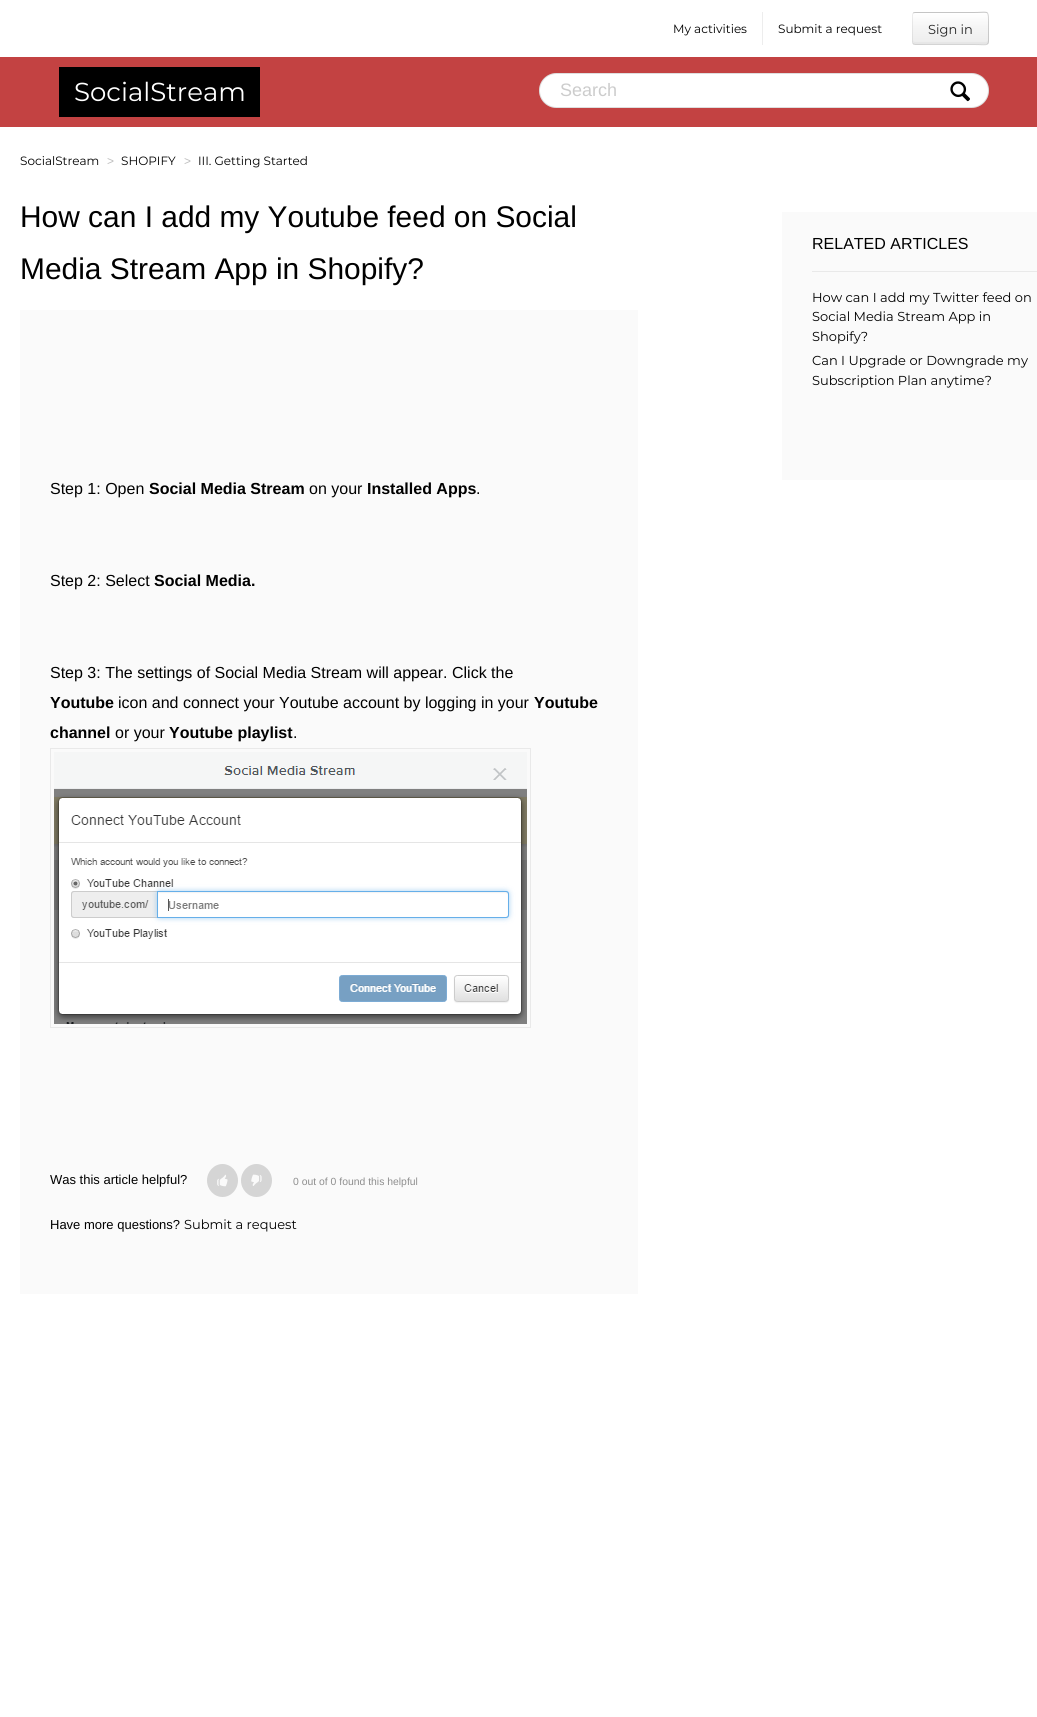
import math
import cairo

surface = cairo.ImageSurface(cairo.FORMAT_RGB24, 1037, 1717)
ctx = cairo.Context(surface)
options = cairo.FontOptions()
options.set_hint_metrics(cairo.HINT_METRICS_OFF)
options.set_hint_style(cairo.HINT_STYLE_NONE)
ctx.set_font_options(options)
ctx.set_miter_limit(4)


def round_rect(x, y, w, h, r):
    ctx.new_sub_path()
    for i, (u, v) in enumerate([(x + w - r, y + h - r), (x + r, y + h - r), (x + r, y + r), (x + w - r, y + r)]):
        ctx.arc(u, v, r, i * math.pi / 2, (i + 1) * math.pi / 2)
    ctx.close_path()


def picture(path, x, y, w, h):
    ctx.save()
    ctx.set_source_surface(cairo.ImageSurface.create_from_png(path), x, y)
    ctx.rectangle(x, y, w, h)
    ctx.fill()
    ctx.restore()


ctx.set_source_rgb(1, 1, 1)
ctx.paint()
ctx.select_font_face("Montserrat Thin")
ctx.set_font_size(12)
ctx.set_source_rgb(0, 0, 0)
ctx.move_to(673, 33)
ctx.show_text("My activities")
ctx.set_source_rgb(0.929, 0.929, 0.929)
ctx.rectangle(762, 12, 1, 33)
ctx.fill()
ctx.set_source_rgb(0, 0, 0)
ctx.move_to(778, 33)
ctx.show_text("Submit a request")
ctx.save()
round_rect(912, 12, 77, 33, 3)
ctx.clip()
gradient = cairo.LinearGradient(951, -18, 951, 13)
gradient.add_color_stop_rgba(0, 1, 1, 1, 1)
gradient.add_color_stop_rgba(0.5, 0.957, 0.957, 0.957, 1)
gradient.add_color_stop_rgba(1, 0.929, 0.929, 0.929, 1)
ctx.set_source(gradient)
ctx.rectangle(912, 12, 77, 1)
ctx.fill()
gradient = cairo.LinearGradient(951, 13, 951, 44)
gradient.add_color_stop_rgba(0, 1, 1, 1, 1)
gradient.add_color_stop_rgba(0.5, 0.957, 0.957, 0.957, 1)
gradient.add_color_stop_rgba(1, 0.929, 0.929, 0.929, 1)
ctx.set_source(gradient)
ctx.rectangle(912, 13, 77, 31)
ctx.fill()
ctx.restore()
ctx.set_source_rgba(0, 0, 0, 0.03)
ctx.new_path()
ctx.move_to(913, 40)
ctx.curve_to(913, 47, 919, 44, 927, 44)
ctx.line_to(974, 44)
ctx.curve_to(982, 44, 988, 47, 988, 40)
ctx.curve_to(988, 41, 987, 42, 986, 42)
ctx.line_to(915, 42)
ctx.curve_to(914, 42, 913, 41, 913, 40)
ctx.close_path()
ctx.fill()
ctx.new_path()
ctx.move_to(913, 13)
ctx.line_to(915, 12.5)
ctx.line_to(974, 12.5)
ctx.curve_to(986.5, 12.5, 988.5, 9.5, 988.5, 19.5)
ctx.line_to(988.5, 33)
ctx.curve_to(988.5, 47.5, 990, 44.5, 974, 44.5)
ctx.line_to(915, 44.5)
ctx.line_to(913, 44)
ctx.set_source_rgba(0, 0, 0, 0.17)
ctx.set_line_width(1)
ctx.stroke()
ctx.new_path()
ctx.move_to(913, 44)
ctx.curve_to(913, 43.5, 912.5, 42.5, 912.5, 42)
ctx.line_to(912.5, 15)
ctx.curve_to(912.5, 14.5, 913, 13.5, 913, 13)
ctx.set_source_rgba(0, 0, 0, 0.07)
ctx.stroke()
ctx.set_font_size(13)
ctx.set_source_rgb(0.145, 0.145, 0.145)
ctx.move_to(928, 34)
ctx.show_text("Sign in")
ctx.set_source_rgb(0.765, 0.259, 0.259)
ctx.rectangle(0, 57, 1037, 70)
ctx.fill()
ctx.set_source_rgb(0, 0, 0)
ctx.rectangle(59, 67, 201, 50)
ctx.fill()
ctx.set_font_size(26)
ctx.set_source_rgb(1, 1, 1)
ctx.move_to(74, 101)
ctx.show_text("SocialStream")
round_rect(539, 73, 450, 35, 17.5)
ctx.fill()
round_rect(539.5, 73.5, 449, 34, 17)
ctx.set_source_rgba(0, 0, 0, 0.13)
ctx.stroke()
ctx.select_font_face("Liberation Sans")
ctx.set_font_size(18)
ctx.set_source_rgb(0.8, 0.8, 0.8)
ctx.move_to(560, 96)
ctx.show_text("Search")
picture("img1.png", 950, 81, 20, 21)
ctx.select_font_face("Montserrat Thin")
ctx.set_font_size(12)
ctx.set_source_rgb(0, 0, 0)
ctx.move_to(20, 165)
ctx.show_text("SocialStream")
ctx.select_font_face("Liberation Sans")
ctx.set_source_rgb(0.745, 0.745, 0.745)
ctx.move_to(107, 165)
ctx.show_text(">")
ctx.select_font_face("Montserrat Thin")
ctx.set_source_rgb(0, 0, 0)
ctx.move_to(121, 165)
ctx.show_text("SHOPIFY")
ctx.select_font_face("Liberation Sans")
ctx.set_source_rgb(0.745, 0.745, 0.745)
ctx.move_to(184, 165)
ctx.show_text(">")
ctx.select_font_face("Montserrat Thin")
ctx.set_source_rgb(0, 0, 0)
ctx.move_to(198, 165)
ctx.show_text("III. Getting Started")
ctx.select_font_face("Liberation Sans")
ctx.set_font_size(29.9)
ctx.move_to(20, 227)
ctx.show_text("How can I add my Youtube feed on Social")
ctx.move_to(20, 279)
ctx.show_text("Media Stream App in Shopify?")
ctx.set_source_rgb(0.98, 0.98, 0.98)
ctx.rectangle(20, 310, 618, 984)
ctx.fill()
ctx.set_font_size(16)
ctx.set_source_rgb(0, 0, 0)
ctx.move_to(50, 494)
ctx.show_text("Step 1: Open")
ctx.select_font_face("Liberation Sans", cairo.FONT_SLANT_NORMAL, cairo.FONT_WEIGHT_BOLD)
ctx.move_to(149, 494)
ctx.show_text("Social Media Stream")
ctx.select_font_face("Liberation Sans")
ctx.move_to(309, 494)
ctx.show_text("on your")
ctx.select_font_face("Liberation Sans", cairo.FONT_SLANT_NORMAL, cairo.FONT_WEIGHT_BOLD)
ctx.move_to(367, 494)
ctx.show_text("Installed Apps")
ctx.select_font_face("Liberation Sans")
ctx.move_to(476, 494)
ctx.show_text(".")
ctx.move_to(50, 586)
ctx.show_text("Step 2: Select")
ctx.select_font_face("Liberation Sans", cairo.FONT_SLANT_NORMAL, cairo.FONT_WEIGHT_BOLD)
ctx.move_to(154, 586)
ctx.show_text("Social Media.")
ctx.select_font_face("Liberation Sans")
ctx.move_to(50, 678)
ctx.show_text("Step 3: The settings of Social Media Stream will appear. Click the")
ctx.select_font_face("Liberation Sans", cairo.FONT_SLANT_NORMAL, cairo.FONT_WEIGHT_BOLD)
ctx.move_to(50, 708)
ctx.show_text("Youtube")
ctx.select_font_face("Liberation Sans")
ctx.move_to(118, 708)
ctx.show_text("icon and connect your Youtube account by logging in your")
ctx.select_font_face("Liberation Sans", cairo.FONT_SLANT_NORMAL, cairo.FONT_WEIGHT_BOLD)
ctx.move_to(534, 708)
ctx.show_text("Youtube")
ctx.move_to(50, 738)
ctx.show_text("channel")
ctx.select_font_face("Liberation Sans")
ctx.move_to(115, 738)
ctx.show_text("or your")
ctx.select_font_face("Liberation Sans", cairo.FONT_SLANT_NORMAL, cairo.FONT_WEIGHT_BOLD)
ctx.move_to(169, 738)
ctx.show_text("Youtube playlist")
ctx.select_font_face("Liberation Sans")
ctx.move_to(293, 738)
ctx.show_text(".")
ctx.rectangle(50.5, 748.5, 480, 279)
ctx.set_source_rgb(0.914, 0.914, 0.914)
ctx.stroke()
picture("img2.png", 54, 752, 473, 272)
ctx.set_font_size(13)
ctx.set_source_rgb(0, 0, 0)
ctx.move_to(50, 1184)
ctx.show_text("Was this article helpful?")
ctx.set_source_rgb(0.835, 0.835, 0.835)
ctx.new_path()
ctx.move_to(222.5, 1164)
ctx.curve_to(231, 1164, 238, 1171.5, 238, 1180.5)
ctx.curve_to(238, 1189.5, 231, 1197, 222.5, 1197)
ctx.curve_to(214, 1197, 207, 1189.5, 207, 1180.5)
ctx.curve_to(207, 1171.5, 214, 1164, 222.5, 1164)
ctx.close_path()
ctx.fill()
ctx.new_path()
ctx.move_to(256.5, 1164)
ctx.curve_to(265, 1164, 272, 1171.5, 272, 1180.5)
ctx.curve_to(272, 1189.5, 265, 1197, 256.5, 1197)
ctx.curve_to(248, 1197, 241, 1189.5, 241, 1180.5)
ctx.curve_to(241, 1171.5, 248, 1164, 256.5, 1164)
ctx.close_path()
ctx.fill()
picture("img3.png", 217, 1174, 11, 13)
picture("img4.png", 251, 1174, 11, 12)
ctx.set_font_size(10.4)
ctx.set_source_rgb(0.557, 0.557, 0.557)
ctx.move_to(293, 1185)
ctx.show_text("0 out of 0 found this helpful")
ctx.set_font_size(13)
ctx.set_source_rgb(0, 0, 0)
ctx.move_to(50, 1229)
ctx.show_text("Have more questions?")
ctx.select_font_face("Montserrat Thin")
ctx.move_to(184, 1229)
ctx.show_text("Submit a request")
ctx.set_source_rgb(0.98, 0.98, 0.98)
ctx.rectangle(782, 212, 255, 268)
ctx.fill()
ctx.set_source_rgb(0.914, 0.914, 0.914)
ctx.rectangle(812, 271, 225, 1)
ctx.fill()
ctx.select_font_face("Liberation Sans")
ctx.set_font_size(16)
ctx.set_source_rgb(0, 0, 0)
ctx.move_to(812, 249)
ctx.show_text("RELATED ARTICLES")
ctx.select_font_face("Montserrat Thin")
ctx.set_font_size(13)
ctx.move_to(812, 302)
ctx.show_text("How can I add my Twitter feed on")
ctx.move_to(812, 321)
ctx.show_text("Social Media Stream App in")
ctx.move_to(812, 341)
ctx.show_text("Shopify?")
ctx.move_to(812, 365)
ctx.show_text("Can I Upgrade or Downgrade my")
ctx.move_to(812, 385)
ctx.show_text("Subscription Plan anytime?")
surface.write_to_png("page.png")
